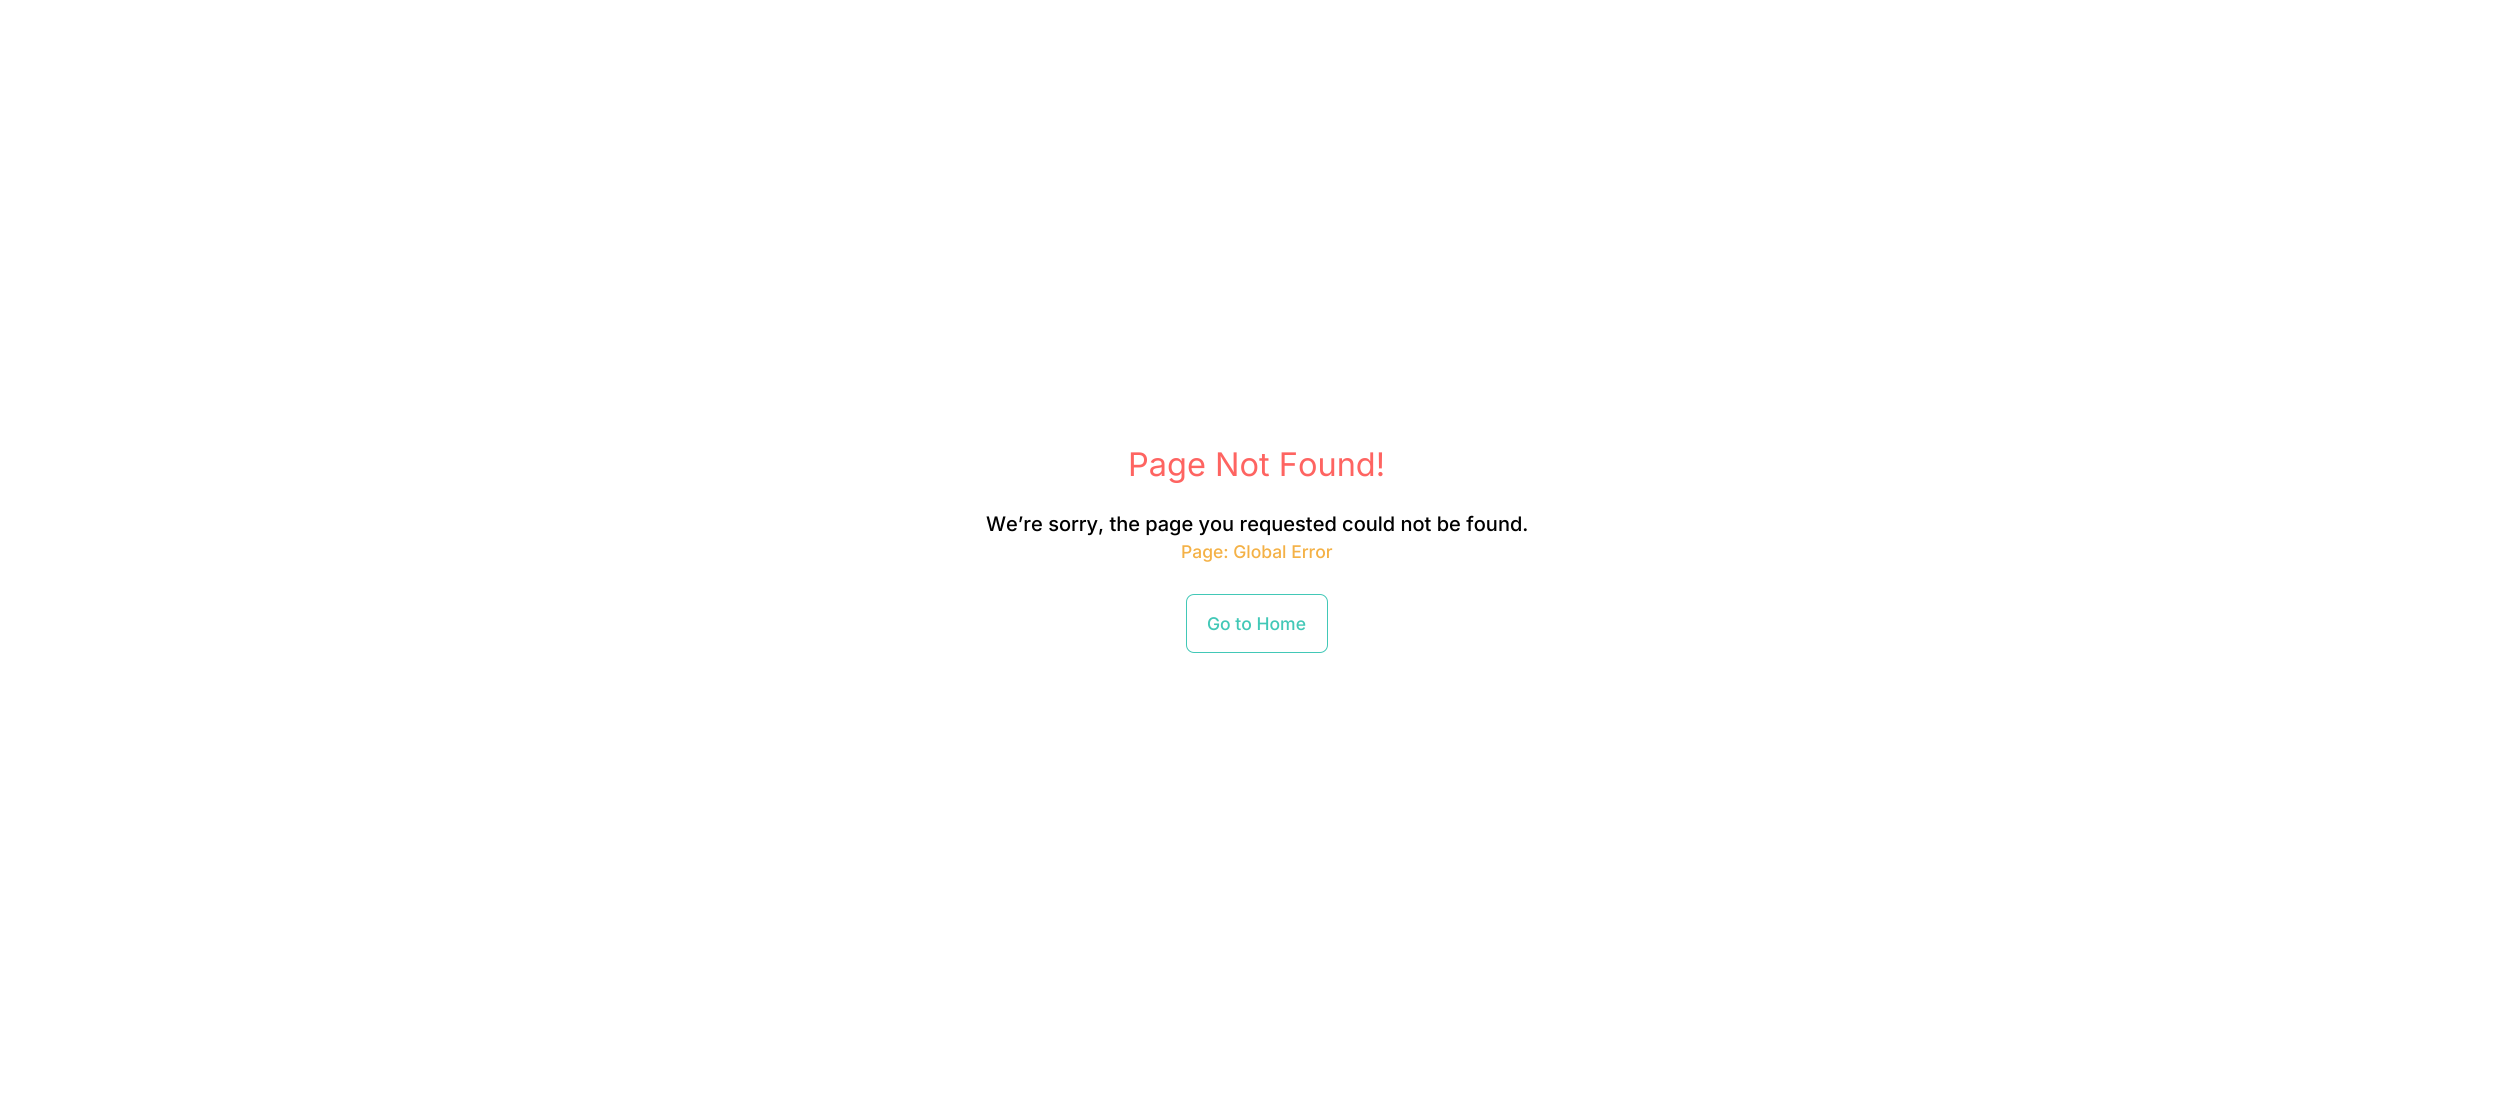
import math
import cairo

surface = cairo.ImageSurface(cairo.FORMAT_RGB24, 2513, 1118)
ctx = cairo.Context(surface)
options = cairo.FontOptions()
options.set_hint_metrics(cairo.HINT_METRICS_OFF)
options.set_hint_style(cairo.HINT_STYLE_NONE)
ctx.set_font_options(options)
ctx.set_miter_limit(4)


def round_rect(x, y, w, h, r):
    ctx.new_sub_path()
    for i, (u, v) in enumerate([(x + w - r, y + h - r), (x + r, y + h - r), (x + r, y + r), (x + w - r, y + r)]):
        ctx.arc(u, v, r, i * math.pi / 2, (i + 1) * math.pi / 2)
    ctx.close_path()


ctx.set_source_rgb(1, 1, 1)
ctx.paint()
ctx.select_font_face("Inter")
ctx.set_font_size(32.5)
ctx.set_source_rgb(0.996, 0.392, 0.38)
ctx.move_to(1128, 476)
ctx.show_text("Page Not Found!")
ctx.select_font_face("Inter Medium")
ctx.set_font_size(20)
ctx.set_source_rgb(0, 0, 0)
ctx.move_to(986, 531)
ctx.show_text("We’re sorry, the page you requested could not be found.")
ctx.set_font_size(17.5)
ctx.set_source_rgb(0.957, 0.694, 0.275)
ctx.move_to(1181, 558)
ctx.show_text("Page: Global Error")
round_rect(1186.5, 594.5, 141, 58, 7.5)
ctx.set_source_rgb(0.259, 0.784, 0.718)
ctx.set_line_width(1)
ctx.stroke()
ctx.move_to(1207, 630)
ctx.show_text("Go to Home")
surface.write_to_png("page.png")
